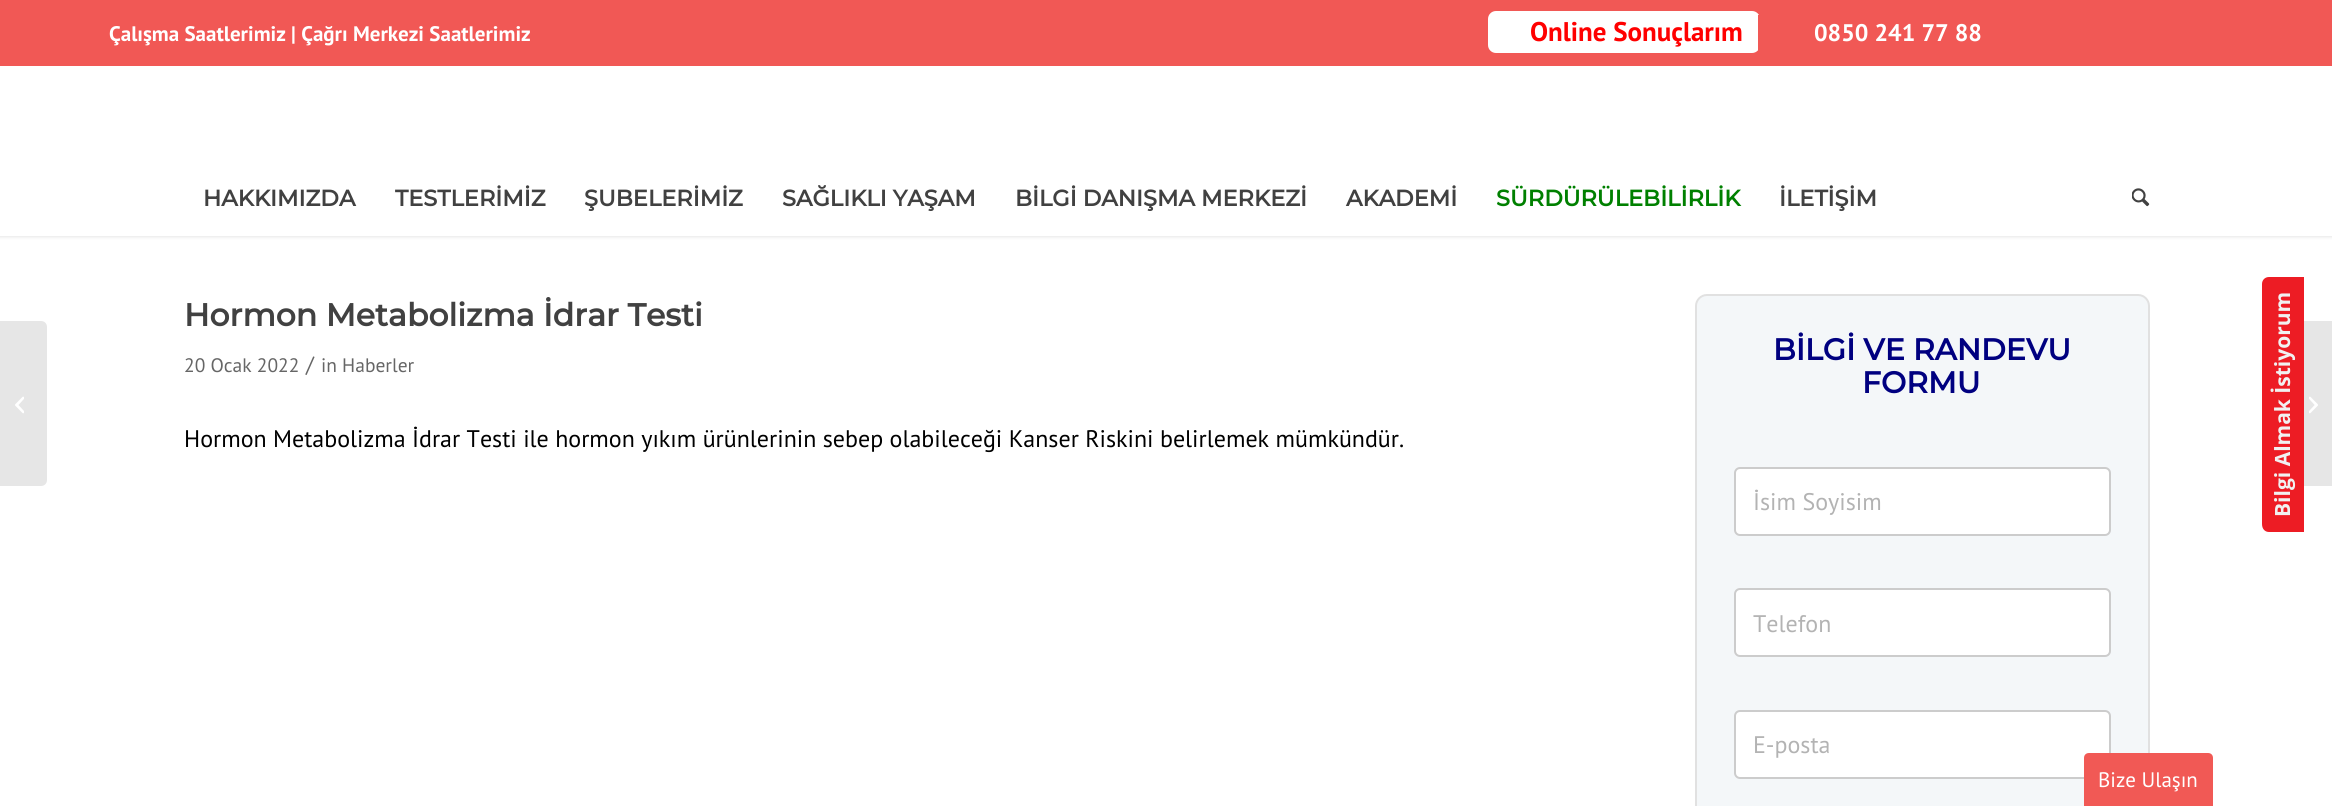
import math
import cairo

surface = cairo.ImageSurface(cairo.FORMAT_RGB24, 2332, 806)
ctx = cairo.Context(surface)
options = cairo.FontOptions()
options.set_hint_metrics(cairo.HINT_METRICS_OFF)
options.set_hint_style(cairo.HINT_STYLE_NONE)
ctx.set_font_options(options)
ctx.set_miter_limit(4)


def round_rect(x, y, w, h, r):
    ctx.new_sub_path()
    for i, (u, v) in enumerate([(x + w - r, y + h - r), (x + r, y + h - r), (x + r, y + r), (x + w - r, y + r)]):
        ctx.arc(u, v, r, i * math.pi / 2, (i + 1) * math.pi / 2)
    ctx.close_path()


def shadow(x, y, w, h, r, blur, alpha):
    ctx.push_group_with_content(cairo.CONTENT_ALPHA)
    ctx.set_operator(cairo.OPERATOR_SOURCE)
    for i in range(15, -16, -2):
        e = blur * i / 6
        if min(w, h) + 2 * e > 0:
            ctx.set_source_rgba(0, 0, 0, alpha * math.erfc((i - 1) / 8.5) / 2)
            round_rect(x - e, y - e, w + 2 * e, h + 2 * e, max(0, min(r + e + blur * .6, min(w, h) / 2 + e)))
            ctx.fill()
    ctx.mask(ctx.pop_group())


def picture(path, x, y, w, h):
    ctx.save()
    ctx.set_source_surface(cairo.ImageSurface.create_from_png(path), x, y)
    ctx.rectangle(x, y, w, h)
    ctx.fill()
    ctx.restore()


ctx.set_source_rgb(1, 1, 1)
ctx.paint()
ctx.set_source_rgb(0, 0, 0)
shadow(-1, -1, 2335, 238, 0, 1.5, 0.1)
ctx.set_source_rgb(0.945, 0.345, 0.333)
ctx.rectangle(0, 0, 2332, 66)
ctx.fill()
ctx.select_font_face("PT Sans", cairo.FONT_SLANT_NORMAL, cairo.FONT_WEIGHT_BOLD)
ctx.set_font_size(21)
ctx.set_source_rgb(1, 1, 1)
ctx.move_to(109, 41)
ctx.show_text("Çalışma Saatlerimiz | Çağrı Merkezi Saatlerimiz")
round_rect(1488, 11, 272, 42, 8)
ctx.fill()
ctx.set_source_rgb(0.945, 0.345, 0.333)
ctx.rectangle(1758, 15, 2, 35)
ctx.fill()
ctx.set_font_size(27)
ctx.set_source_rgb(1, 0, 0)
ctx.move_to(1530, 41)
ctx.show_text("Online Sonuçlarım")
ctx.set_font_size(24)
ctx.set_source_rgb(1, 1, 1)
ctx.move_to(1814, 41)
ctx.show_text("0850 241 77 88")
ctx.rectangle(0, 66, 2332, 170)
ctx.fill()
ctx.select_font_face("Montserrat", cairo.FONT_SLANT_NORMAL, cairo.FONT_WEIGHT_BOLD)
ctx.set_font_size(22.5)
ctx.set_source_rgb(0.255, 0.255, 0.255)
ctx.move_to(203, 206)
ctx.show_text("HAKKIMIZDA")
ctx.move_to(395, 206)
ctx.show_text("TESTLERİMİZ")
ctx.move_to(584, 206)
ctx.show_text("ŞUBELERİMİZ")
ctx.move_to(782, 206)
ctx.show_text("SAĞLIKLI YAŞAM")
ctx.move_to(1015, 206)
ctx.show_text("BİLGİ DANIŞMA MERKEZİ")
ctx.move_to(1346, 206)
ctx.show_text("AKADEMİ")
ctx.set_source_rgb(0, 0.502, 0)
ctx.move_to(1496, 206)
ctx.show_text("SÜRDÜRÜLEBİLİRLİK")
ctx.set_source_rgb(0.255, 0.255, 0.255)
ctx.move_to(1779, 206)
ctx.show_text("İLETİŞİM")
picture("img1.png", 2132, 188, 18, 19)
ctx.set_source_rgb(0.902, 0.902, 0.902)
ctx.new_path()
ctx.move_to(0, 321)
ctx.line_to(41, 321)
ctx.curve_to(44.5, 321, 47, 323.5, 47, 327)
ctx.line_to(47, 480)
ctx.curve_to(47, 483.5, 44.5, 486, 41, 486)
ctx.line_to(0, 486)
ctx.close_path()
ctx.fill()
picture("img2.png", 15, 396, 9, 18)
ctx.set_font_size(31.5)
ctx.set_source_rgb(0.255, 0.255, 0.255)
ctx.move_to(184, 326)
ctx.show_text("Hormon Metabolizma İdrar Testi")
ctx.select_font_face("PT Sans")
ctx.set_font_size(19.5)
ctx.set_source_rgb(0.4, 0.4, 0.4)
ctx.move_to(184, 372)
ctx.show_text("20 Ocak 2022")
ctx.set_font_size(22)
ctx.move_to(306, 372)
ctx.show_text("/")
ctx.set_font_size(19.5)
ctx.move_to(321, 372)
ctx.show_text("in Haberler")
ctx.set_font_size(24)
ctx.set_source_rgb(0, 0, 0)
ctx.move_to(184, 447)
ctx.show_text("Hormon Metabolizma İdrar Testi ile hormon yıkım ürünlerinin sebep olabileceği Kanser Riskini belirlemek mümkündür.")
ctx.set_source_rgb(0.957, 0.965, 0.973)
round_rect(1696, 295, 453, 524, 11)
ctx.fill_preserve()
ctx.set_source_rgb(0.882, 0.882, 0.882)
ctx.stroke()
ctx.select_font_face("Montserrat", cairo.FONT_SLANT_NORMAL, cairo.FONT_WEIGHT_BOLD)
ctx.set_font_size(30)
ctx.set_source_rgb(0, 0, 0.502)
ctx.move_to(1773, 360)
ctx.show_text("BİLGİ VE RANDEVU")
ctx.move_to(1862, 393)
ctx.show_text("FORMU")
ctx.set_source_rgb(1, 1, 1)
round_rect(1735, 468, 375, 67, 5)
ctx.fill_preserve()
ctx.set_source_rgb(0.8, 0.8, 0.8)
ctx.stroke()
ctx.select_font_face("PT Sans")
ctx.set_font_size(24)
ctx.set_source_rgb(0.702, 0.702, 0.702)
ctx.move_to(1753, 510)
ctx.show_text("İsim Soyisim")
ctx.set_source_rgb(1, 1, 1)
round_rect(1735, 589, 375, 67, 5)
ctx.fill_preserve()
ctx.set_source_rgb(0.8, 0.8, 0.8)
ctx.stroke()
ctx.set_source_rgb(0.702, 0.702, 0.702)
ctx.move_to(1753, 632)
ctx.show_text("Telefon")
ctx.set_source_rgb(1, 1, 1)
round_rect(1735, 711, 375, 67, 5)
ctx.fill_preserve()
ctx.set_source_rgb(0.8, 0.8, 0.8)
ctx.stroke()
ctx.set_source_rgb(0.702, 0.702, 0.702)
ctx.move_to(1753, 753)
ctx.show_text("E-posta")
ctx.set_source_rgb(0.902, 0.902, 0.902)
ctx.rectangle(2304, 321, 28, 165)
ctx.fill()
picture("img3.png", 2309, 396, 9, 18)
ctx.set_source_rgb(0.929, 0.11, 0.141)
ctx.new_path()
ctx.move_to(2262, 524)
ctx.line_to(2262, 284)
ctx.curve_to(2262, 280, 2265, 277, 2269, 277)
ctx.line_to(2304, 277)
ctx.line_to(2304, 532)
ctx.line_to(2269, 532)
ctx.curve_to(2265, 532, 2262, 529, 2262, 524)
ctx.close_path()
ctx.fill()
ctx.select_font_face("Open Sans", cairo.FONT_SLANT_NORMAL, cairo.FONT_WEIGHT_BOLD)
ctx.set_font_size(21)
ctx.set_source_rgb(0.945, 0.945, 0.945)
ctx.save()
ctx.translate(2290, 517)
ctx.rotate(-90 * math.pi / 180)
ctx.move_to(0, 0)
ctx.show_text("Bilgi Almak İstiyorum")
ctx.restore()
ctx.set_source_rgb(0.945, 0.349, 0.333)
ctx.new_path()
ctx.move_to(2089, 753)
ctx.line_to(2208, 753)
ctx.curve_to(2211, 753, 2213, 755, 2213, 758)
ctx.line_to(2213, 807)
ctx.line_to(2084, 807)
ctx.line_to(2084, 758)
ctx.curve_to(2084, 755, 2086, 753, 2089, 753)
ctx.close_path()
ctx.fill()
ctx.select_font_face("PT Sans")
ctx.set_source_rgb(1, 1, 1)
ctx.move_to(2098, 787)
ctx.show_text("Bize Ulaşın")
surface.write_to_png("page.png")
